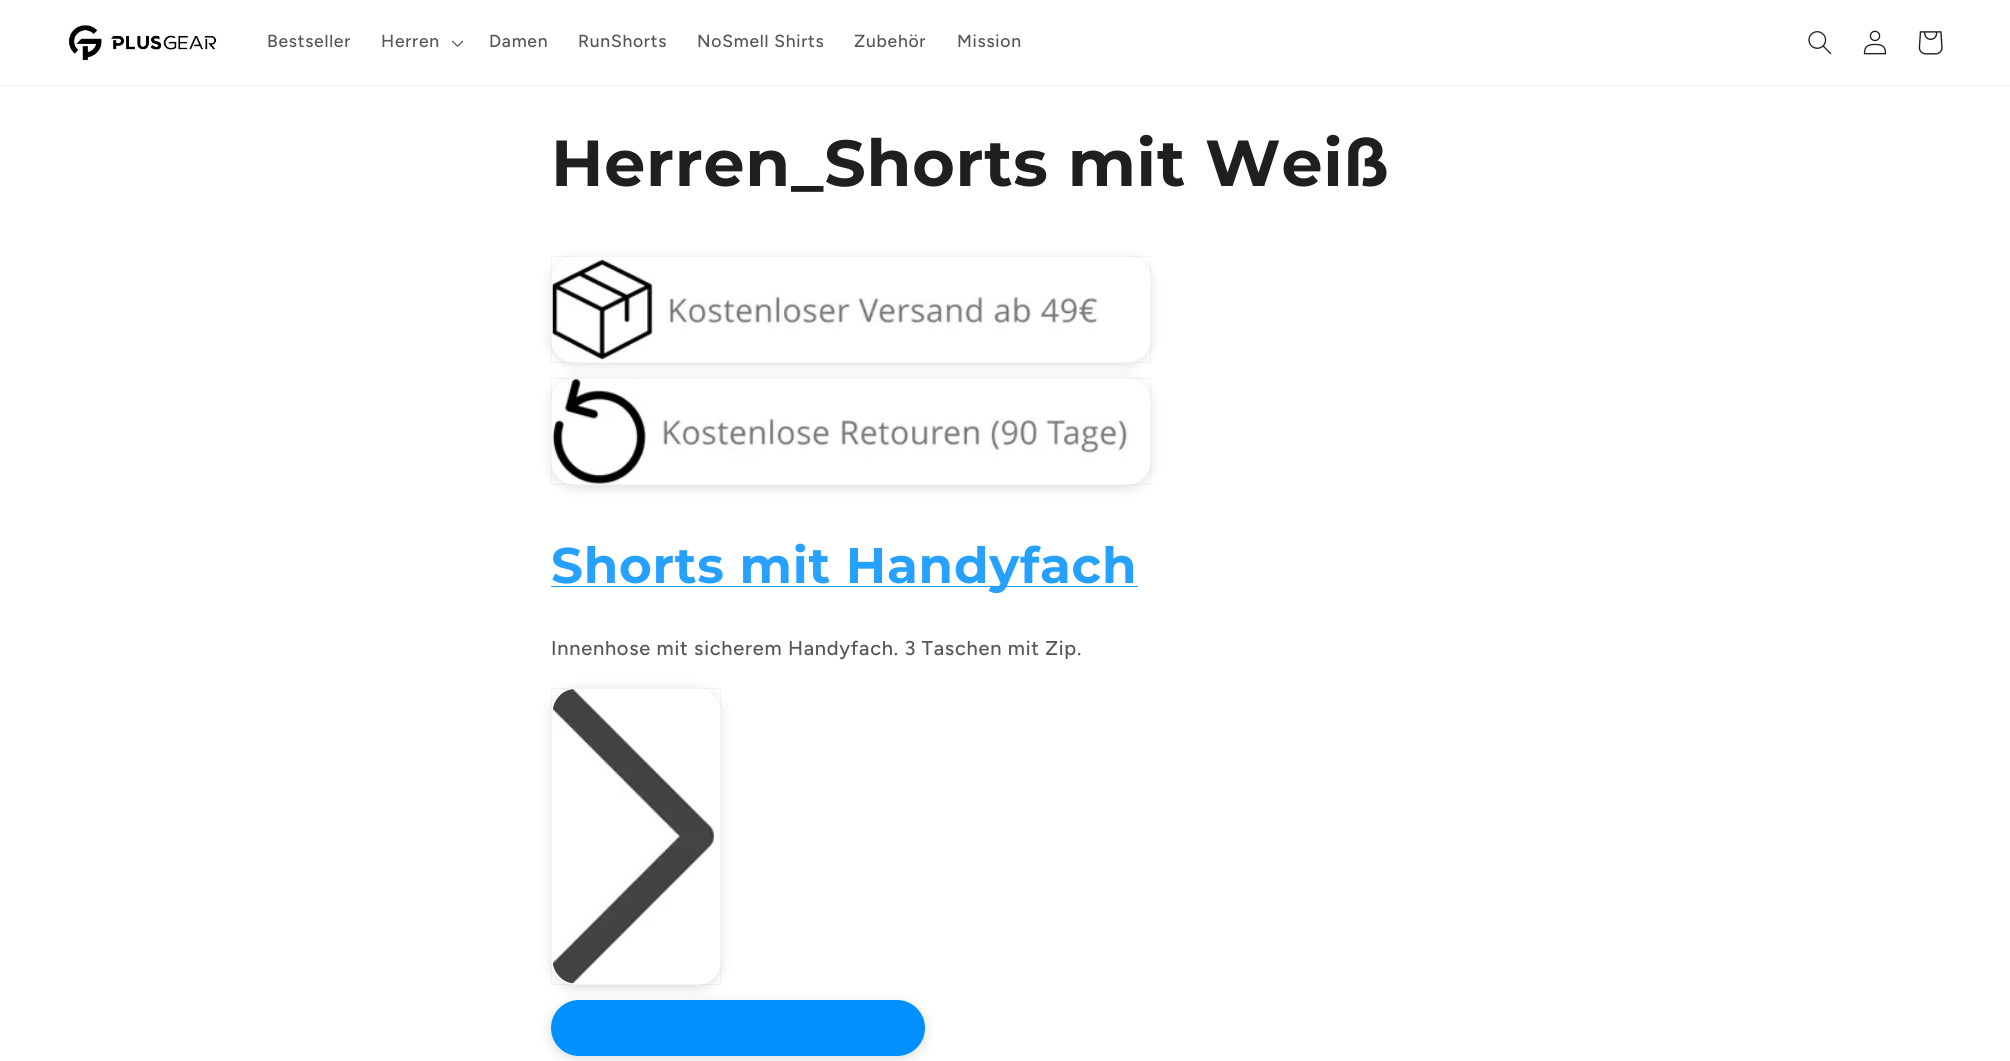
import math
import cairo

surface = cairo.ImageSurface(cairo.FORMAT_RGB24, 2010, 1061)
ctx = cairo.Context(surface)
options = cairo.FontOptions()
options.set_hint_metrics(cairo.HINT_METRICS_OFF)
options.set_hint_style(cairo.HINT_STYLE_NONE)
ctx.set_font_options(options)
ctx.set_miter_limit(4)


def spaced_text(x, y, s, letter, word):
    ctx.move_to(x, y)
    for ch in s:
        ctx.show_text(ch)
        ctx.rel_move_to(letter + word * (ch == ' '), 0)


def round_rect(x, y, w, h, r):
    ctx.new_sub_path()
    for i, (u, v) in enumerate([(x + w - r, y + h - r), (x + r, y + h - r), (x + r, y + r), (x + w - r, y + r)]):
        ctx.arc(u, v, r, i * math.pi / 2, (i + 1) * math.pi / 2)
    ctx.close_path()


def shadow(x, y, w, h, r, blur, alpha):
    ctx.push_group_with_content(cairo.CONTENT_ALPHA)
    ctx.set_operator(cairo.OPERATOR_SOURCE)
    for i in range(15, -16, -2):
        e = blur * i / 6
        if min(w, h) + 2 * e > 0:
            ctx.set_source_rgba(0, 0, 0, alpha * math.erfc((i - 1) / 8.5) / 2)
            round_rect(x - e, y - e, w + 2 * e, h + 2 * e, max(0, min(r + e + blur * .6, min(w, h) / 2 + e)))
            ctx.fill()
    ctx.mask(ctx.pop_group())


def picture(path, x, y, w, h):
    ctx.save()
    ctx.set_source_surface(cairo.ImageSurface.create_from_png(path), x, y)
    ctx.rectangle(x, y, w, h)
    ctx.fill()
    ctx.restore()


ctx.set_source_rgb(1, 1, 1)
ctx.paint()
ctx.set_source_rgb(0.929, 0.929, 0.929)
ctx.rectangle(0, 85, 2010, 1)
ctx.fill()
picture("img1.png", 68, 25, 149, 36)
ctx.select_font_face("Figtree Medium")
ctx.set_font_size(17.5)
ctx.set_source_rgb(0.341, 0.341, 0.349)
spaced_text(267, 47, "Bestseller", 0.75, 0)
spaced_text(381, 47, "Herren", 0.75, 0)
picture("img2.png", 451, 40, 13, 7)
spaced_text(489, 47, "Damen", 0.75, 0)
spaced_text(578, 47, "RunShorts", 0.75, 0)
spaced_text(697, 47, "NoSmell Shirts", 0.75, 0)
spaced_text(854, 47, "Zubehör", 0.75, 0)
spaced_text(957, 47, "Mission", 0.75, 0)
picture("img3.png", 1808, 31, 24, 24)
picture("img4.png", 1863, 30, 24, 25)
picture("img5.png", 1918, 31, 25, 24)
ctx.select_font_face("Montserrat", cairo.FONT_SLANT_NORMAL, cairo.FONT_WEIGHT_BOLD)
ctx.set_font_size(65)
ctx.set_source_rgb(0.122, 0.122, 0.129)
spaced_text(551, 186, "Herren_Shorts mit Weiß", 0.75, 0)
ctx.save()
ctx.set_fill_rule(cairo.FILL_RULE_EVEN_ODD)
ctx.new_path()
ctx.move_to(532, 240)
ctx.line_to(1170, 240)
ctx.line_to(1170, 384)
ctx.line_to(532, 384)
ctx.close_path()
ctx.move_to(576, 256)
ctx.line_to(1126, 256)
ctx.curve_to(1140, 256, 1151, 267, 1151, 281)
ctx.line_to(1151, 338)
ctx.curve_to(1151, 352, 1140, 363, 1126, 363)
ctx.line_to(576, 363)
ctx.curve_to(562, 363, 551, 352, 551, 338)
ctx.line_to(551, 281)
ctx.curve_to(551, 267, 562, 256, 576, 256)
ctx.close_path()
ctx.clip()
ctx.set_source_rgb(0.122, 0.122, 0.129)
shadow(551, 259, 600, 106, 25, 6, 0.15)
ctx.restore()
ctx.rectangle(551.5, 256.5, 599, 106)
ctx.set_source_rgba(0.122, 0.122, 0.129, 0.05)
ctx.set_line_width(1)
ctx.stroke()
picture("img6.png", 552, 258, 548, 103)
ctx.save()
ctx.set_fill_rule(cairo.FILL_RULE_EVEN_ODD)
ctx.new_path()
ctx.move_to(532, 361)
ctx.line_to(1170, 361)
ctx.line_to(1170, 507)
ctx.line_to(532, 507)
ctx.close_path()
ctx.move_to(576, 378)
ctx.line_to(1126, 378)
ctx.curve_to(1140, 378, 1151, 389, 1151, 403)
ctx.line_to(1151, 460)
ctx.curve_to(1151, 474, 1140, 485, 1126, 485)
ctx.line_to(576, 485)
ctx.curve_to(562, 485, 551, 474, 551, 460)
ctx.line_to(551, 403)
ctx.curve_to(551, 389, 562, 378, 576, 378)
ctx.close_path()
ctx.clip()
ctx.set_source_rgb(0.122, 0.122, 0.129)
shadow(551, 380, 600, 108, 25, 6, 0.15)
ctx.restore()
ctx.rectangle(551.5, 378.5, 599, 106)
ctx.stroke()
picture("img7.png", 552, 378, 592, 106)
ctx.set_source_rgb(0.153, 0.631, 1)
ctx.rectangle(551, 586, 587, 1)
ctx.fill()
ctx.set_font_size(50)
spaced_text(551, 583, "Shorts mit Handyfach", 0.75, 0)
ctx.select_font_face("Figtree Medium")
ctx.set_font_size(20)
ctx.set_source_rgb(0.341, 0.341, 0.349)
spaced_text(551, 655, "Innenhose mit sicherem Handyfach. 3 Taschen mit Zip.", 0.75, 0)
ctx.save()
ctx.set_fill_rule(cairo.FILL_RULE_EVEN_ODD)
ctx.new_path()
ctx.move_to(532, 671)
ctx.line_to(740, 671)
ctx.line_to(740, 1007)
ctx.line_to(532, 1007)
ctx.close_path()
ctx.move_to(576, 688)
ctx.line_to(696, 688)
ctx.curve_to(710, 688, 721, 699, 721, 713)
ctx.line_to(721, 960)
ctx.curve_to(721, 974, 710, 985, 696, 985)
ctx.line_to(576, 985)
ctx.curve_to(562, 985, 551, 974, 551, 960)
ctx.line_to(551, 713)
ctx.curve_to(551, 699, 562, 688, 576, 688)
ctx.close_path()
ctx.clip()
ctx.set_source_rgb(0.122, 0.122, 0.129)
shadow(551, 690, 170, 298, 25, 6, 0.15)
ctx.restore()
ctx.set_source_rgb(0.122, 0.122, 0.129)
shadow(551, 1003, 374, 56, 28, 6, 0.15)
ctx.rectangle(551.5, 688.5, 169, 296)
ctx.set_source_rgba(0.122, 0.122, 0.129, 0.05)
ctx.stroke()
picture("img8.png", 552, 689, 163, 295)
ctx.set_source_rgb(0.004, 0.565, 1)
round_rect(551, 1000, 374, 56, 28)
ctx.fill()
surface.write_to_png("page.png")
